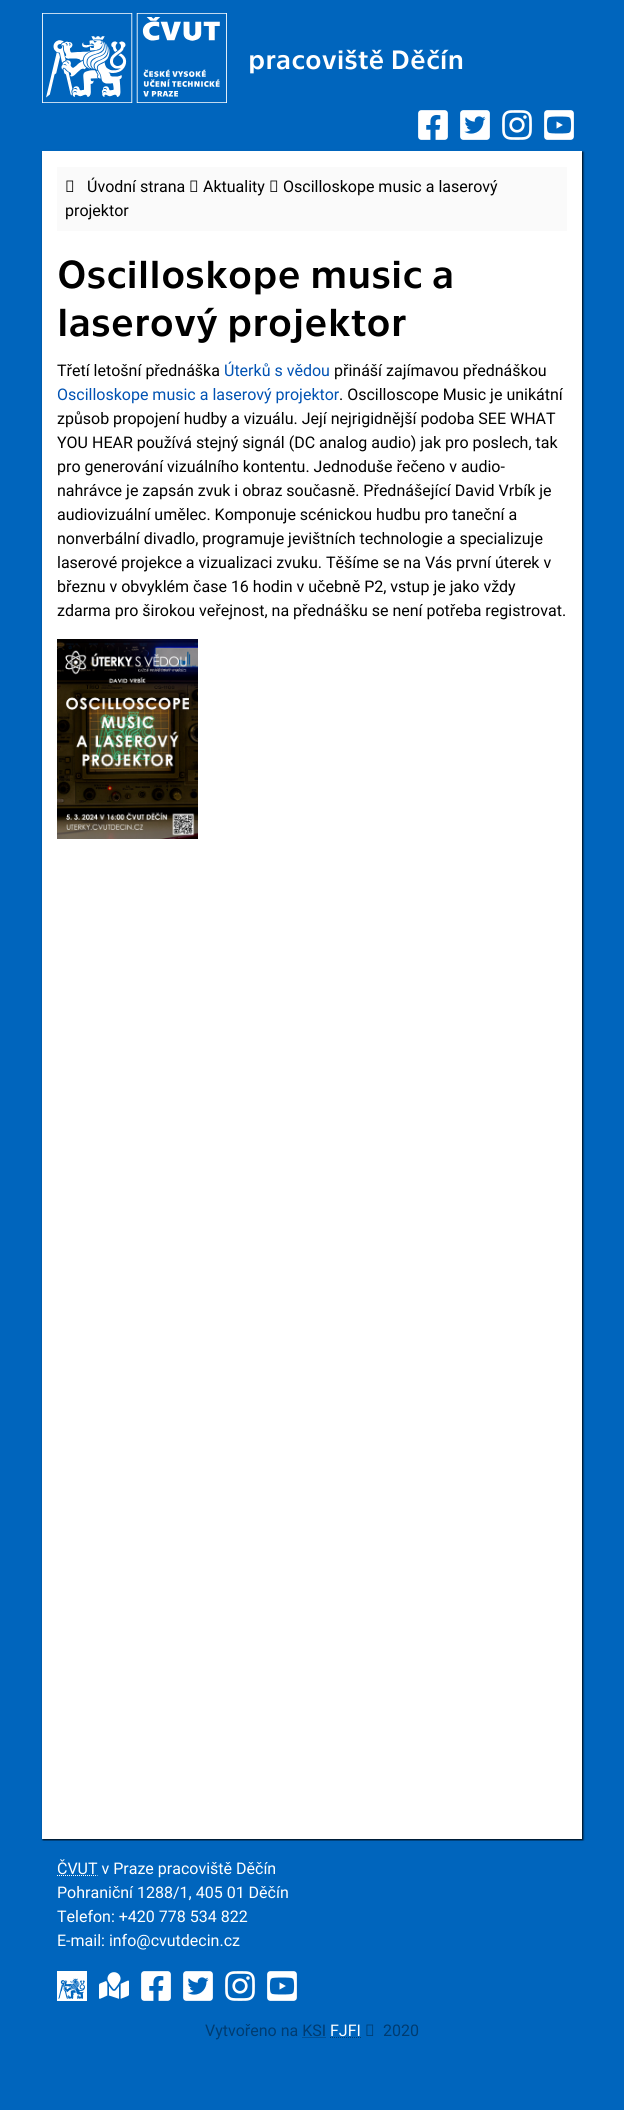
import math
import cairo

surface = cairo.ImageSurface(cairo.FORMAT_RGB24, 624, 2110)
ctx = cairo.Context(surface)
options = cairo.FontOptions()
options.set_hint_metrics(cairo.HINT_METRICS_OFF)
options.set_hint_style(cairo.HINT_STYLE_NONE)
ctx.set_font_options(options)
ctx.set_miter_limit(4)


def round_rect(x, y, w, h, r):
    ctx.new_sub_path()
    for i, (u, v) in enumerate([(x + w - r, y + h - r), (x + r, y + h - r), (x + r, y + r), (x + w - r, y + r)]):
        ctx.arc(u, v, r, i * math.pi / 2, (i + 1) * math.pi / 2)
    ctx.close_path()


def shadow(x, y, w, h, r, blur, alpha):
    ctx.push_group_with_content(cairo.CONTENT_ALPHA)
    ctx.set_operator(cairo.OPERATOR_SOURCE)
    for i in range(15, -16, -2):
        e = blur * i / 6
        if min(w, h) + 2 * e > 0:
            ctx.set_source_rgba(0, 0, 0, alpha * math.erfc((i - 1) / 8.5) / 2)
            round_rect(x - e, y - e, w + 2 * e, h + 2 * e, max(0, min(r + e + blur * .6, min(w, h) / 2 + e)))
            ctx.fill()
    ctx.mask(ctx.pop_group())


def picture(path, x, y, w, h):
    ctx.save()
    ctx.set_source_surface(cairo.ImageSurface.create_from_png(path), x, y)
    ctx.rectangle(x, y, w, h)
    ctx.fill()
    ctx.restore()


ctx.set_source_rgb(0, 0.396, 0.741)
ctx.paint()
ctx.set_source_rgb(0, 0, 0)
shadow(43, 152, 540, 1688, 0, 1, 1)
ctx.set_source_rgb(0, 0.396, 0.741)
ctx.rectangle(42, 150, 542, 1)
ctx.fill()
picture("img1.png", 42, 13, 185, 90)
ctx.select_font_face("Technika")
ctx.set_font_size(27.25)
ctx.set_source_rgb(1, 1, 1)
ctx.move_to(248, 69)
ctx.show_text("pracoviště Děčín")
picture("img2.png", 418, 110, 30, 30)
picture("img3.png", 460, 110, 30, 30)
picture("img4.png", 502, 110, 30, 30)
picture("img5.png", 544, 110, 30, 30)
ctx.rectangle(42, 151, 540, 1688)
ctx.fill()
ctx.set_source_rgb(0.98, 0.98, 0.98)
ctx.rectangle(57, 167, 510, 64)
ctx.fill()
picture("img6.png", 66, 180, 8, 12)
ctx.select_font_face("Roboto")
ctx.set_font_size(16)
ctx.set_source_rgb(0, 0, 0)
ctx.move_to(87, 192)
ctx.show_text("Úvodní strana")
picture("img6.png", 190, 180, 8, 12)
ctx.move_to(203, 192)
ctx.show_text("Aktuality")
picture("img6.png", 270, 180, 8, 12)
ctx.move_to(283, 192)
ctx.show_text("Oscilloskope music a laserový")
ctx.move_to(65, 216)
ctx.show_text("projektor")
ctx.select_font_face("Technika")
ctx.set_font_size(40)
ctx.move_to(57, 288)
ctx.show_text("Oscilloskope music a")
ctx.move_to(57, 336)
ctx.show_text("laserový projektor")
ctx.select_font_face("Roboto")
ctx.set_font_size(16)
ctx.move_to(57, 376)
ctx.show_text("Třetí letošní přednáška")
ctx.set_source_rgb(0, 0.322, 0.702)
ctx.move_to(224, 376)
ctx.show_text("Úterků s vědou")
ctx.set_source_rgb(0, 0, 0)
ctx.move_to(334, 376)
ctx.show_text("přináší zajímavou přednáškou")
ctx.set_source_rgb(0, 0.322, 0.702)
ctx.move_to(57, 400)
ctx.show_text("Oscilloskope music a laserový projektor")
ctx.set_source_rgb(0, 0, 0)
ctx.move_to(339, 400)
ctx.show_text(". Oscilloscope Music je unikátní")
ctx.move_to(57, 424)
ctx.show_text("způsob propojení hudby a vizuálu. Její nejrigidnější podoba SEE WHAT")
ctx.move_to(57, 448)
ctx.show_text("YOU HEAR používá stejný signál (DC analog audio) jak pro poslech, tak")
ctx.move_to(57, 472)
ctx.show_text("pro generování vizuálního kontentu. Jednoduše řečeno v audio-")
ctx.move_to(57, 496)
ctx.show_text("nahrávce je zapsán zvuk i obraz současně. Přednášející David Vrbík je")
ctx.move_to(57, 520)
ctx.show_text("audiovizuální umělec. Komponuje scénickou hudbu pro taneční a")
ctx.move_to(57, 544)
ctx.show_text("nonverbální divadlo, programuje jevištních technologie a specializuje")
ctx.move_to(57, 568)
ctx.show_text("laserové projekce a vizualizaci zvuku. Těšíme se na Vás první úterek v")
ctx.move_to(57, 592)
ctx.show_text("březnu v obvyklém čase 16 hodin v učebně P2, vstup je jako vždy")
ctx.move_to(57, 616)
ctx.show_text("zdarma pro širokou veřejnost, na přednášku se není potřeba registrovat.")
picture("img7.png", 57, 639, 141, 200)
ctx.set_source_rgb(0, 0.396, 0.741)
ctx.rectangle(42, 1841, 542, 1)
ctx.fill()
ctx.new_path()
ctx.move_to(57, 1875.5)
ctx.line_to(97.5, 1875.5)
ctx.set_source_rgb(1, 1, 1)
ctx.set_line_width(1)
ctx.set_dash([1, 1])
ctx.stroke()
ctx.move_to(57, 1874)
ctx.show_text("ČVUT v Praze pracoviště Děčín")
ctx.move_to(57, 1898)
ctx.show_text("Pohraniční 1288/1, 405 01 Děčín")
ctx.move_to(57, 1922)
ctx.show_text("Telefon: +420 778 534 822")
ctx.move_to(57, 1946)
ctx.show_text("E-mail: info@cvutdecin.cz")
picture("img8.png", 57, 1971, 30, 30)
picture("img9.png", 99, 1972, 30, 27)
picture("img2.png", 141, 1971, 30, 30)
picture("img3.png", 183, 1971, 30, 30)
picture("img4.png", 225, 1971, 30, 30)
picture("img5.png", 267, 1971, 30, 30)
ctx.set_source_rgb(0, 0.235, 0.443)
ctx.move_to(205, 2036)
ctx.show_text("Vytvořeno na KSI")
ctx.set_source_rgb(1, 1, 1)
ctx.move_to(330, 2036)
ctx.show_text("FJFI")
picture("img10.png", 366, 2024, 8, 12)
ctx.set_source_rgb(0, 0.235, 0.443)
ctx.move_to(383, 2036)
ctx.show_text("2020")
ctx.new_path()
ctx.move_to(302.5, 2037.5)
ctx.line_to(326, 2037.5)
ctx.move_to(330, 2037.5)
ctx.line_to(361, 2037.5)
ctx.stroke()
surface.write_to_png("page.png")
